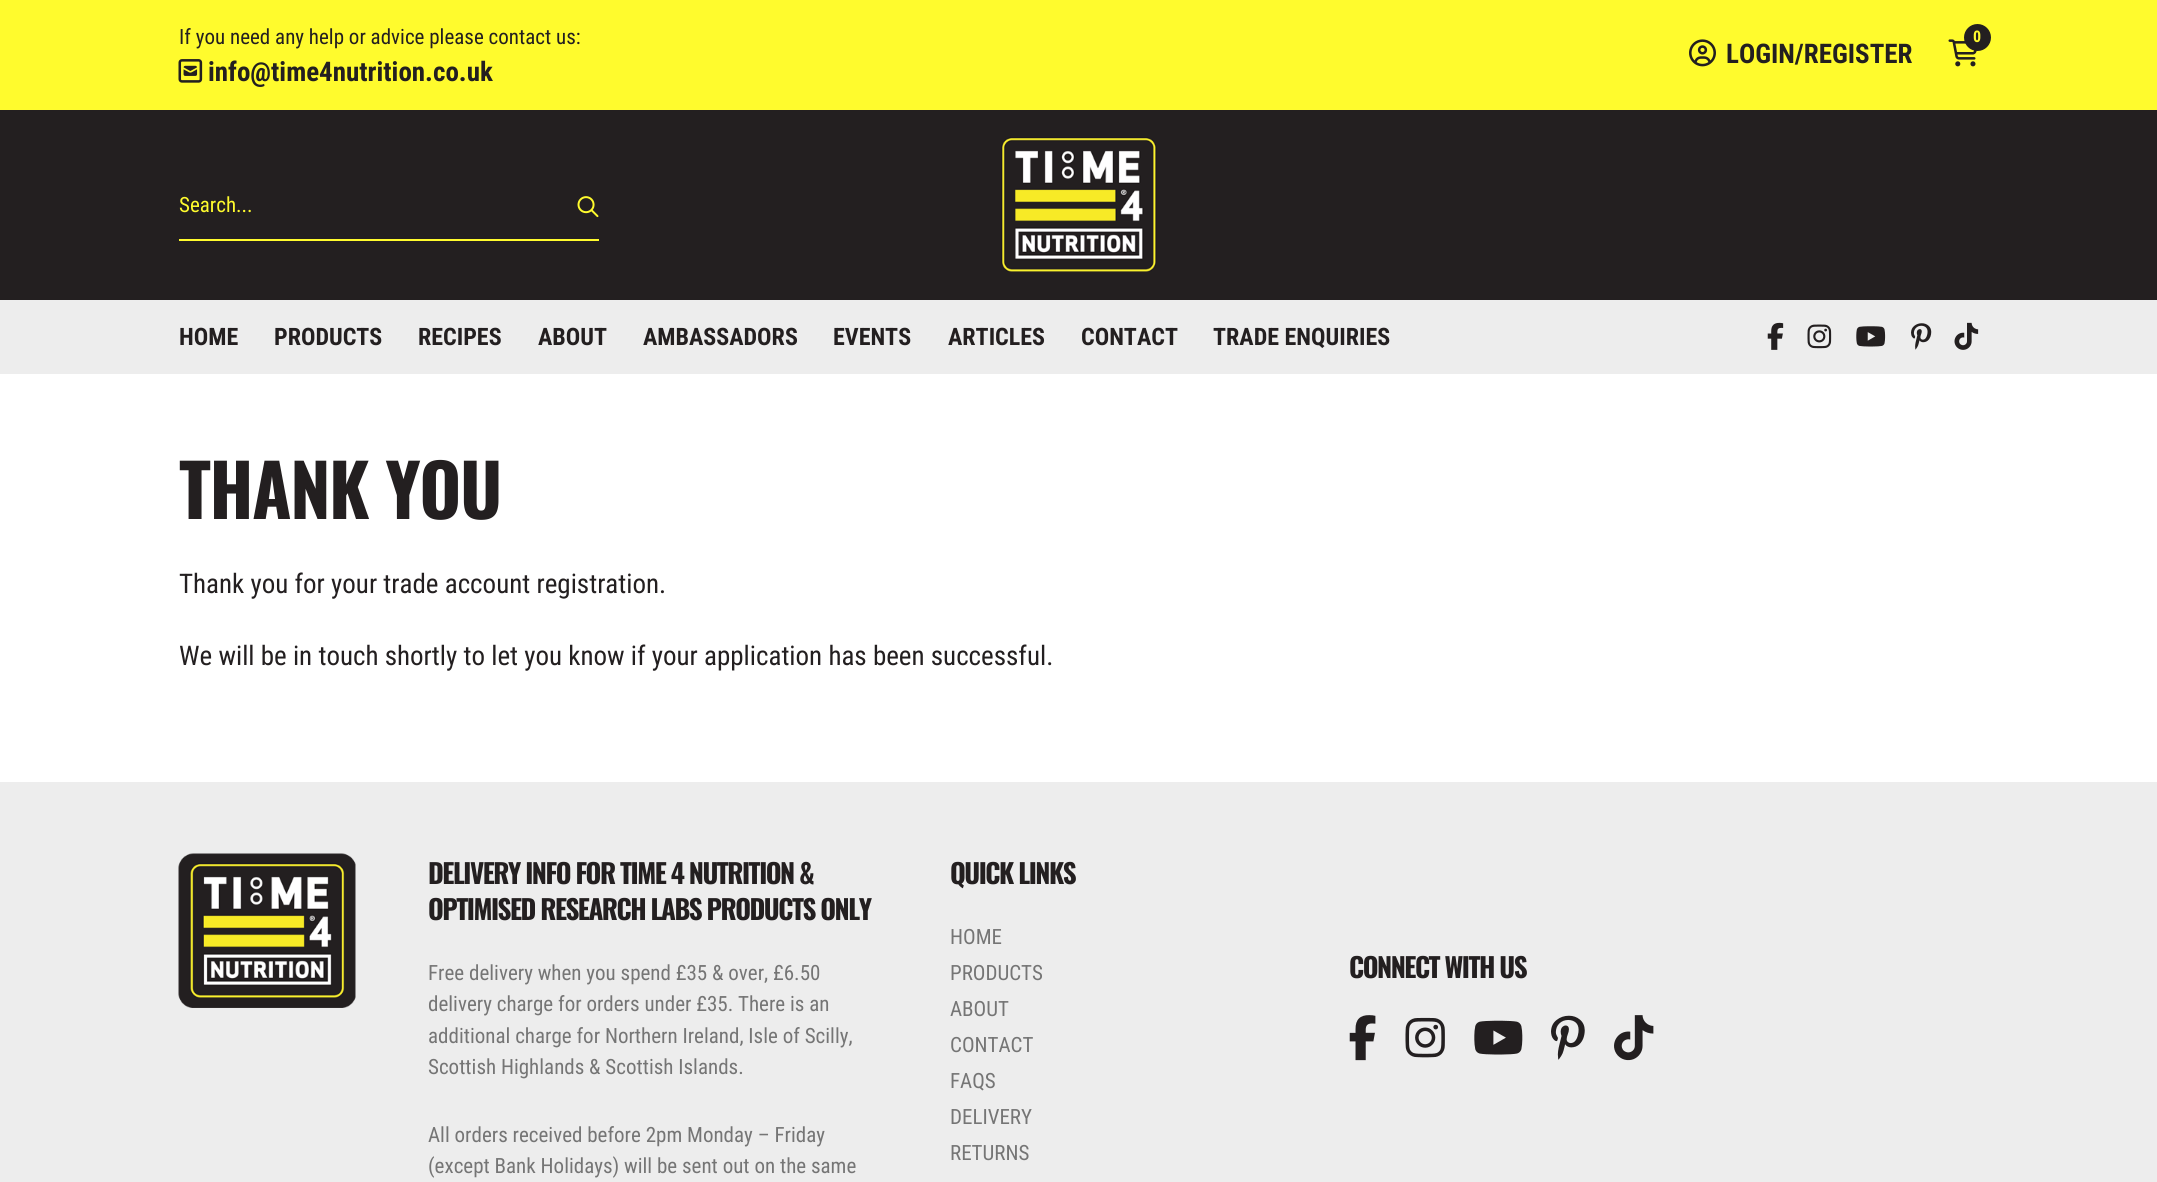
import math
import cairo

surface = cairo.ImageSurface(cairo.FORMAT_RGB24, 2157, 1182)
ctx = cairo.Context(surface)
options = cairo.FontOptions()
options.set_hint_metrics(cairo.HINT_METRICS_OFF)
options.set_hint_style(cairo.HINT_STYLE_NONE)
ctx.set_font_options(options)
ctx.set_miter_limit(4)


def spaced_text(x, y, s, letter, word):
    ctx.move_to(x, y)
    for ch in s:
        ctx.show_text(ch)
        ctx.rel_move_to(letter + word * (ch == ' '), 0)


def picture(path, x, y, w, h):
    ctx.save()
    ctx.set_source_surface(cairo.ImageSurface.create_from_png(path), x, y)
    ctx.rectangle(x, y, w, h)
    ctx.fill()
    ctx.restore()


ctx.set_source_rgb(1, 1, 1)
ctx.paint()
ctx.set_source_rgb(1, 0.984, 0.176)
ctx.rectangle(0, 0, 2157, 110)
ctx.fill()
ctx.select_font_face("Roboto Condensed")
ctx.set_font_size(21)
ctx.set_source_rgb(0.137, 0.122, 0.125)
ctx.move_to(179, 44)
ctx.show_text("If you need any help or advice please contact us:")
picture("img1.png", 178, 59, 25, 24)
ctx.select_font_face("Roboto Condensed", cairo.FONT_SLANT_NORMAL, cairo.FONT_WEIGHT_BOLD)
ctx.set_font_size(27)
ctx.move_to(208, 81)
ctx.show_text("info@time4nutrition.co.uk")
picture("img2.png", 1948, 39, 29, 28)
ctx.arc(1977.5, 37.5, 13.5, 0, 2 * math.pi)
ctx.fill()
ctx.set_font_size(16)
ctx.set_source_rgb(1, 0.984, 0.176)
ctx.move_to(1973, 42)
ctx.show_text("0")
picture("img3.png", 1689, 39, 27, 28)
ctx.set_font_size(27)
ctx.set_source_rgb(0.137, 0.122, 0.125)
ctx.move_to(1726, 63)
ctx.show_text("LOGIN/REGISTER")
ctx.rectangle(0, 110, 2157, 190)
ctx.fill()
ctx.set_source_rgb(1, 0.984, 0.176)
ctx.rectangle(179, 239, 420, 2)
ctx.fill()
ctx.select_font_face("Roboto Condensed")
ctx.set_font_size(21)
ctx.move_to(179, 212)
ctx.show_text("Search...")
picture("img4.png", 577, 196, 22, 22)
picture("img5.png", 1001, 137, 156, 135)
ctx.set_source_rgb(0.929, 0.929, 0.929)
ctx.rectangle(0, 300, 2157, 74)
ctx.fill()
ctx.select_font_face("Roboto Condensed", cairo.FONT_SLANT_NORMAL, cairo.FONT_WEIGHT_BOLD)
ctx.set_font_size(24)
ctx.set_source_rgb(0.137, 0.122, 0.125)
ctx.move_to(179, 345)
ctx.show_text("HOME")
ctx.move_to(274, 345)
ctx.show_text("PRODUCTS")
ctx.move_to(418, 345)
ctx.show_text("RECIPES")
ctx.move_to(538, 345)
ctx.show_text("ABOUT")
ctx.move_to(643, 345)
ctx.show_text("AMBASSADORS")
ctx.move_to(833, 345)
ctx.show_text("EVENTS")
ctx.move_to(948, 345)
ctx.show_text("ARTICLES")
ctx.move_to(1081, 345)
ctx.show_text("CONTACT")
ctx.move_to(1213, 345)
ctx.show_text("TRADE ENQUIRIES")
picture("img6.png", 1767, 322, 17, 28)
picture("img7.png", 1807, 324, 25, 25)
picture("img8.png", 1856, 326, 30, 21)
picture("img9.png", 1911, 323, 21, 27)
picture("img10.png", 1954, 322, 25, 28)
ctx.select_font_face("Oswald", cairo.FONT_SLANT_NORMAL, cairo.FONT_WEIGHT_BOLD)
ctx.set_font_size(72)
spaced_text(179, 519, "THANK YOU", -1.5, 0)
ctx.select_font_face("Roboto Condensed")
ctx.set_font_size(27)
ctx.move_to(179, 593)
ctx.show_text("Thank you for your trade account registration.")
ctx.move_to(179, 665)
ctx.show_text("We will be in touch shortly to let you know if your application has been successful.")
ctx.set_source_rgb(0.929, 0.929, 0.929)
ctx.rectangle(0, 782, 2157, 400)
ctx.fill()
picture("img11.png", 178, 853, 178, 155)
ctx.select_font_face("Oswald", cairo.FONT_SLANT_NORMAL, cairo.FONT_WEIGHT_BOLD)
ctx.set_source_rgb(0.137, 0.122, 0.125)
spaced_text(428, 884, "DELIVERY INFO FOR TIME 4 NUTRITION &", -1.5, 0)
spaced_text(428, 920, "OPTIMISED RESEARCH LABS PRODUCTS ONLY", -1.5, 0)
ctx.select_font_face("Roboto Condensed")
ctx.set_font_size(21)
ctx.set_source_rgb(0.459, 0.459, 0.459)
ctx.move_to(428, 980)
ctx.show_text("Free delivery when you spend £35 & over, £6.50")
ctx.move_to(428, 1011)
ctx.show_text("delivery charge for orders under £35. There is an")
ctx.move_to(428, 1043)
ctx.show_text("additional charge for Northern Ireland, Isle of Scilly,")
ctx.move_to(428, 1074)
ctx.show_text("Scottish Highlands & Scottish Islands.")
ctx.move_to(428, 1142)
ctx.show_text("All orders received before 2pm Monday – Friday")
ctx.move_to(428, 1173)
ctx.show_text("(except Bank Holidays) will be sent out on the same")
ctx.select_font_face("Oswald", cairo.FONT_SLANT_NORMAL, cairo.FONT_WEIGHT_BOLD)
ctx.set_font_size(27)
ctx.set_source_rgb(0.137, 0.122, 0.125)
spaced_text(950, 884, "QUICK LINKS", -1.5, 0)
ctx.select_font_face("Roboto Condensed")
ctx.set_font_size(21)
ctx.set_source_rgb(0.459, 0.459, 0.459)
ctx.move_to(950, 944)
ctx.show_text("HOME")
ctx.move_to(950, 980)
ctx.show_text("PRODUCTS")
ctx.move_to(950, 1016)
ctx.show_text("ABOUT")
ctx.move_to(950, 1052)
ctx.show_text("CONTACT")
ctx.move_to(950, 1088)
ctx.show_text("FAQS")
ctx.move_to(950, 1124)
ctx.show_text("DELIVERY")
ctx.move_to(950, 1160)
ctx.show_text("RETURNS")
ctx.select_font_face("Oswald", cairo.FONT_SLANT_NORMAL, cairo.FONT_WEIGHT_BOLD)
ctx.set_font_size(27)
ctx.set_source_rgb(0.137, 0.122, 0.125)
spaced_text(1349, 978, "CONNECT WITH US", -1.5, 0)
picture("img12.png", 1349, 1015, 27, 46)
picture("img13.png", 1405, 1017, 40, 41)
picture("img14.png", 1474, 1020, 49, 35)
picture("img15.png", 1551, 1015, 34, 45)
picture("img16.png", 1614, 1015, 40, 46)
surface.write_to_png("page.png")
